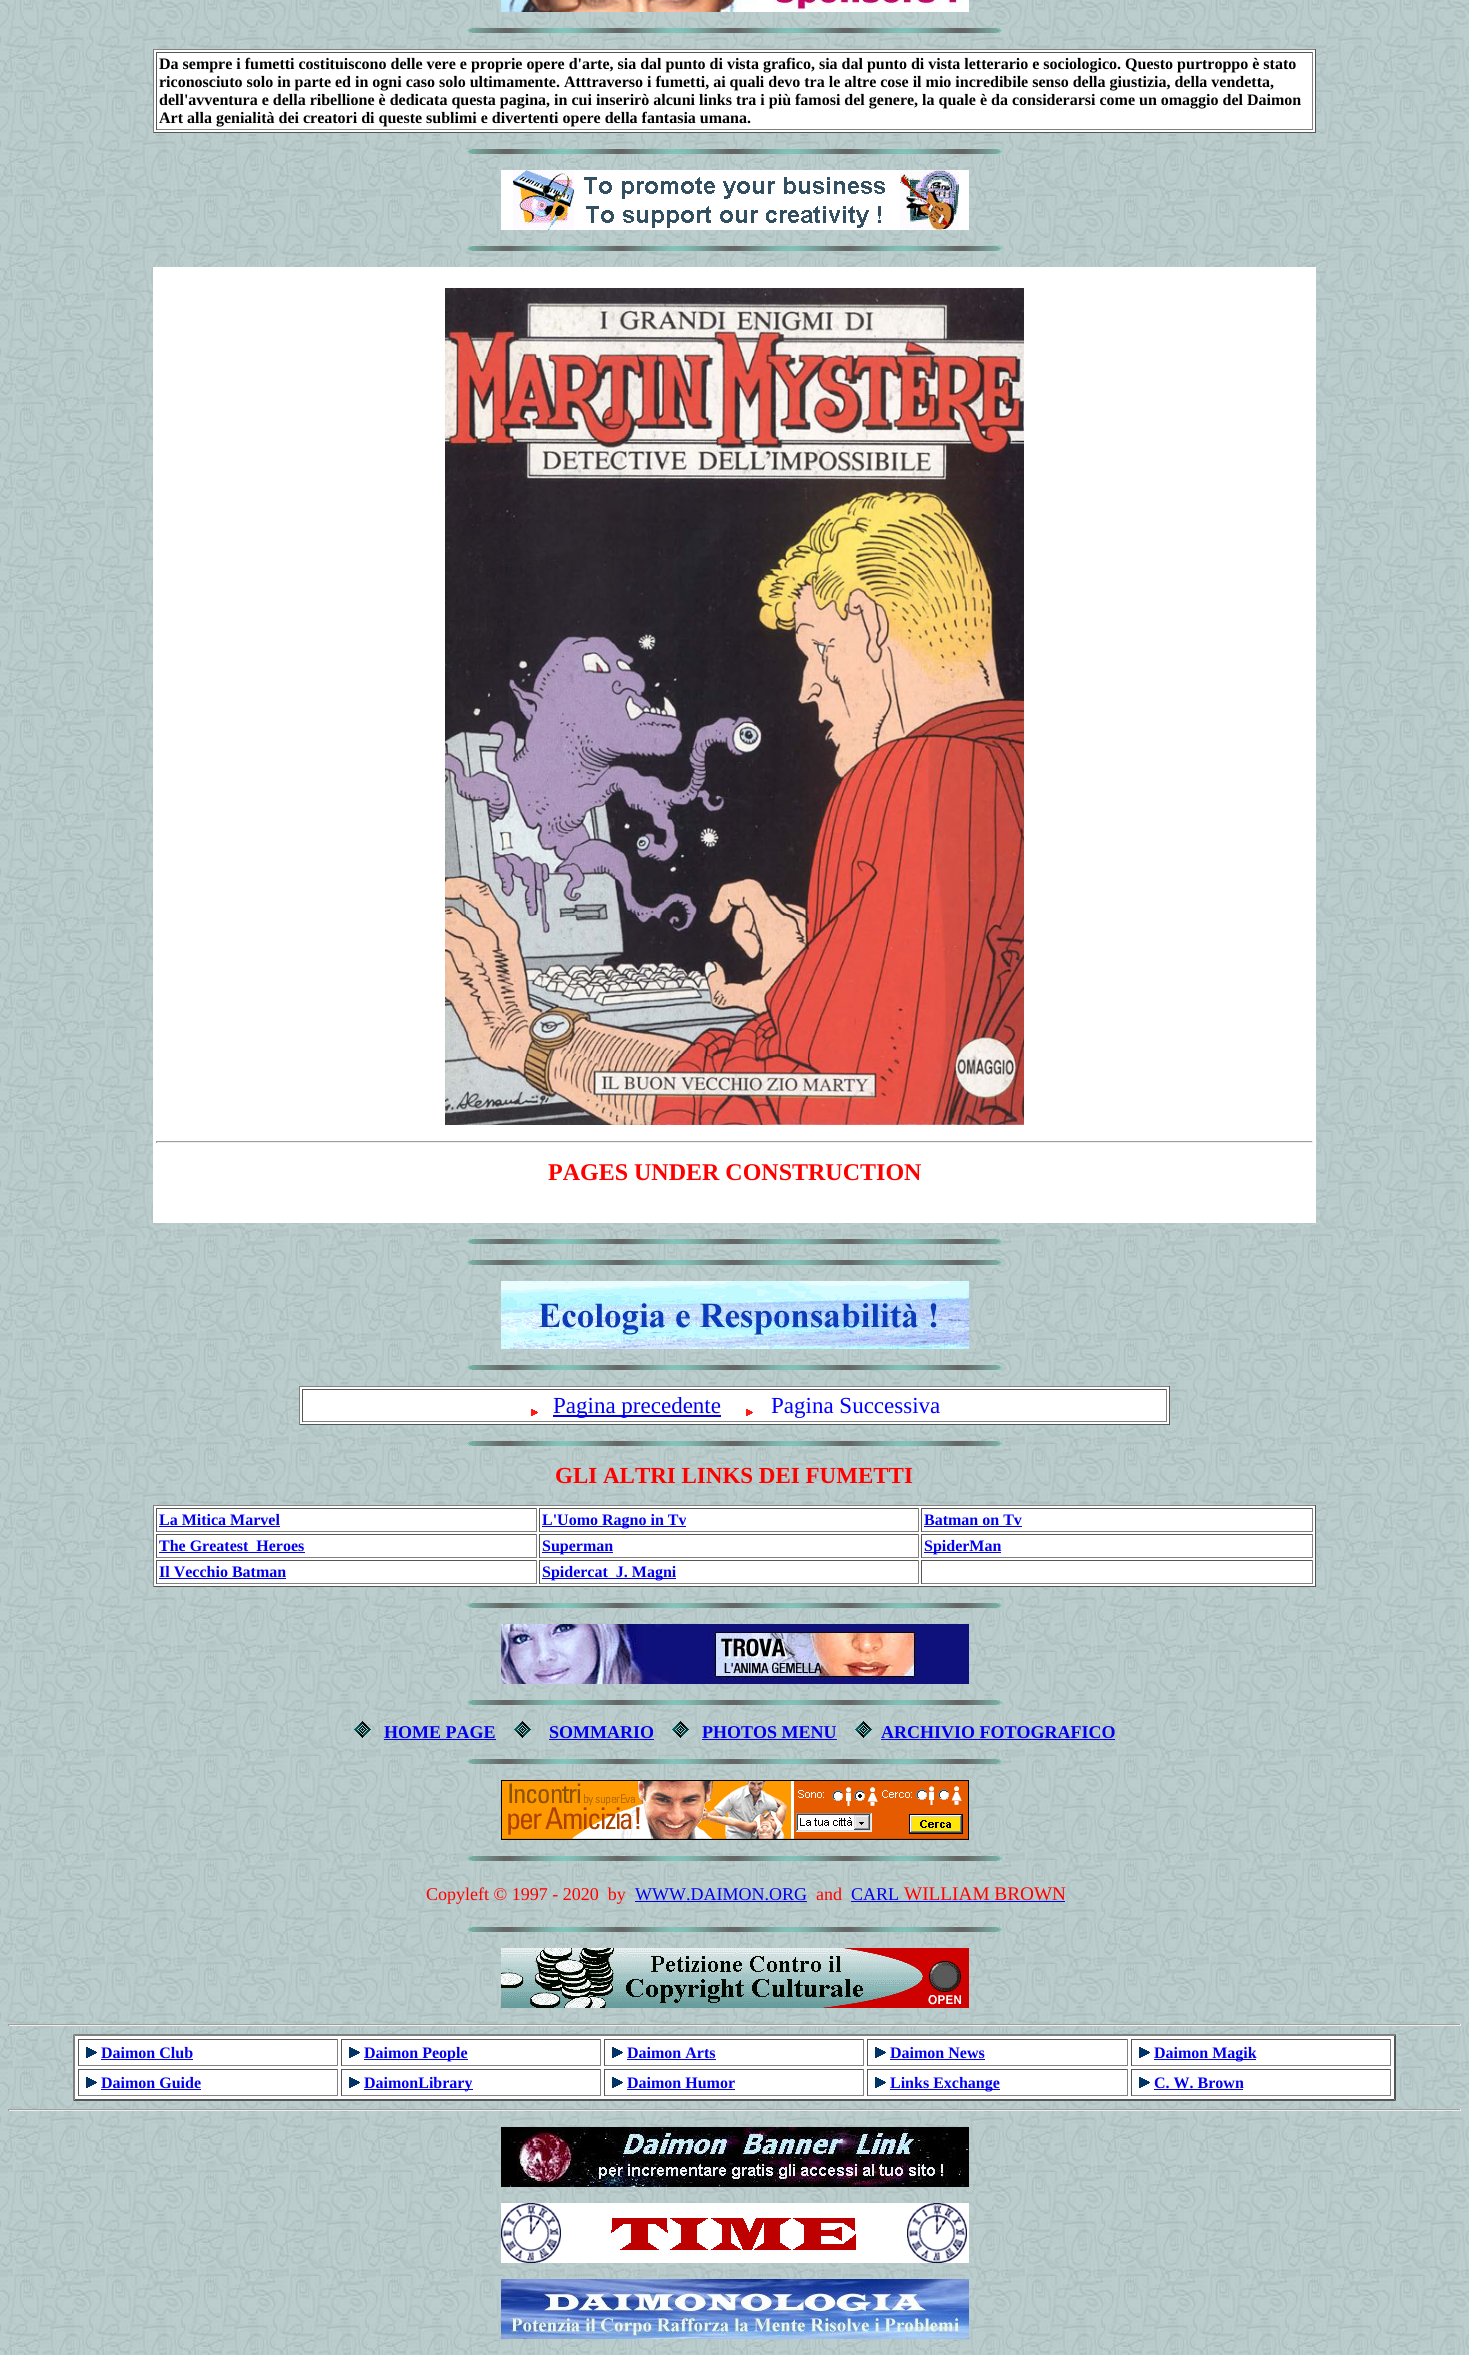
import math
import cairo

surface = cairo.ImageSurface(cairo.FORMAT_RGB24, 1469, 2355)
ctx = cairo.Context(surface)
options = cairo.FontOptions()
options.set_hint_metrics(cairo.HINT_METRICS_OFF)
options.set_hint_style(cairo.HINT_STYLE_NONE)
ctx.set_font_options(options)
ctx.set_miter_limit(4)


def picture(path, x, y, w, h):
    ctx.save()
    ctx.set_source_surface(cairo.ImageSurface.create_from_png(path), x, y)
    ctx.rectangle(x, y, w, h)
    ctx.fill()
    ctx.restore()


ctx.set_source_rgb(1, 1, 1)
ctx.paint()
picture("img1.png", 0, 0, 1469, 2355)
picture("img2.png", 501, 0, 468, 12)
picture("img3.png", 467, 28, 535, 5)
ctx.set_source_rgb(1, 1, 1)
ctx.rectangle(154, 50, 1161, 82)
ctx.fill()
ctx.set_source_rgb(0.502, 0.502, 0.502)
ctx.rectangle(153, 49, 1163, 1)
ctx.fill()
ctx.set_source_rgb(0.333, 0.333, 0.333)
ctx.rectangle(1315, 49, 1, 84)
ctx.fill()
ctx.rectangle(153, 132, 1163, 1)
ctx.fill()
ctx.set_source_rgb(0.502, 0.502, 0.502)
ctx.rectangle(153, 49, 1, 84)
ctx.fill()
ctx.set_source_rgb(0.333, 0.333, 0.333)
ctx.rectangle(156, 52, 1157, 1)
ctx.fill()
ctx.set_source_rgb(0.502, 0.502, 0.502)
ctx.rectangle(1312, 52, 1, 78)
ctx.fill()
ctx.rectangle(156, 129, 1157, 1)
ctx.fill()
ctx.set_source_rgb(0.333, 0.333, 0.333)
ctx.rectangle(156, 52, 1, 78)
ctx.fill()
ctx.select_font_face("Liberation Serif", cairo.FONT_SLANT_NORMAL, cairo.FONT_WEIGHT_BOLD)
ctx.set_font_size(16)
ctx.set_source_rgb(0, 0, 0)
ctx.move_to(159, 69)
ctx.show_text("Da sempre i fumetti costituiscono delle vere e proprie opere d'arte, sia dal punto di vista grafico, sia dal punto di vista letterario e sociologico. Questo purtroppo è stato")
ctx.move_to(159, 87)
ctx.show_text("riconosciuto solo in parte ed in ogni caso solo ultimamente. Atttraverso i fumetti, ai quali devo tra le altre cose il mio incredibile senso della giustizia, della vendetta,")
ctx.move_to(159, 105)
ctx.show_text("dell'avventura e della ribellione è dedicata questa pagina, in cui inserirò alcuni links tra i più famosi del genere, la quale è da considerarsi come un omaggio del Daimon")
ctx.move_to(159, 123)
ctx.show_text("Art alla genialità dei creatori di queste sublimi e divertenti opere della fantasia umana.")
picture("img4.png", 467, 149, 535, 5)
picture("img5.png", 501, 170, 468, 60)
picture("img6.png", 467, 246, 535, 5)
ctx.set_source_rgb(1, 1, 1)
ctx.rectangle(153, 267, 1163, 956)
ctx.fill()
picture("img7.png", 445, 288, 579, 837)
ctx.set_source_rgb(0.624, 0.624, 0.624)
ctx.rectangle(156, 1141, 1157, 1)
ctx.fill()
ctx.set_source_rgb(0.933, 0.933, 0.933)
ctx.rectangle(1312, 1141, 1, 2)
ctx.fill()
ctx.rectangle(156, 1142, 1157, 1)
ctx.fill()
ctx.set_source_rgb(0.624, 0.624, 0.624)
ctx.rectangle(156, 1141, 1, 2)
ctx.fill()
ctx.set_font_size(24)
ctx.set_source_rgb(1, 0, 0)
ctx.move_to(548, 1180)
ctx.show_text("PAGES UNDER CONSTRUCTION")
picture("img8.png", 467, 1239, 535, 5)
picture("img9.png", 467, 1260, 535, 5)
picture("img10.png", 501, 1281, 468, 68)
picture("img11.png", 467, 1365, 535, 5)
ctx.set_source_rgb(1, 1, 1)
ctx.rectangle(300, 1387, 869, 37)
ctx.fill()
ctx.set_source_rgb(0.502, 0.502, 0.502)
ctx.rectangle(299, 1386, 871, 1)
ctx.fill()
ctx.set_source_rgb(0.333, 0.333, 0.333)
ctx.rectangle(1169, 1386, 1, 39)
ctx.fill()
ctx.rectangle(299, 1424, 871, 1)
ctx.fill()
ctx.set_source_rgb(0.502, 0.502, 0.502)
ctx.rectangle(299, 1386, 1, 39)
ctx.fill()
ctx.set_source_rgb(0.333, 0.333, 0.333)
ctx.rectangle(302, 1389, 865, 1)
ctx.fill()
ctx.set_source_rgb(0.502, 0.502, 0.502)
ctx.rectangle(1166, 1389, 1, 33)
ctx.fill()
ctx.rectangle(302, 1421, 865, 1)
ctx.fill()
ctx.set_source_rgb(0.333, 0.333, 0.333)
ctx.rectangle(302, 1389, 1, 33)
ctx.fill()
picture("img12.png", 531, 1409, 7, 7)
ctx.set_source_rgb(0, 0, 0.933)
ctx.rectangle(553, 1415, 168, 2)
ctx.fill()
ctx.select_font_face("Liberation Serif")
ctx.set_font_size(23)
ctx.move_to(553, 1413)
ctx.show_text("Pagina precedente")
picture("img12.png", 746, 1409, 7, 7)
ctx.set_source_rgb(0, 0, 1)
ctx.move_to(771, 1413)
ctx.show_text("Pagina Successiva")
picture("img13.png", 467, 1441, 535, 5)
ctx.select_font_face("Liberation Serif", cairo.FONT_SLANT_NORMAL, cairo.FONT_WEIGHT_BOLD)
ctx.set_source_rgb(1, 0, 0)
ctx.move_to(555, 1483)
ctx.show_text("GLI ALTRI LINKS DEI FUMETTI")
ctx.set_source_rgb(1, 1, 1)
ctx.rectangle(154, 1506, 1161, 80)
ctx.fill()
ctx.set_source_rgb(0.502, 0.502, 0.502)
ctx.rectangle(153, 1505, 1163, 1)
ctx.fill()
ctx.set_source_rgb(0.333, 0.333, 0.333)
ctx.rectangle(1315, 1505, 1, 82)
ctx.fill()
ctx.rectangle(153, 1586, 1163, 1)
ctx.fill()
ctx.set_source_rgb(0.502, 0.502, 0.502)
ctx.rectangle(153, 1505, 1, 82)
ctx.fill()
ctx.set_source_rgb(0.333, 0.333, 0.333)
ctx.rectangle(156, 1508, 381, 1)
ctx.fill()
ctx.set_source_rgb(0.502, 0.502, 0.502)
ctx.rectangle(536, 1508, 1, 24)
ctx.fill()
ctx.rectangle(156, 1531, 381, 1)
ctx.fill()
ctx.set_source_rgb(0.333, 0.333, 0.333)
ctx.rectangle(156, 1508, 1, 24)
ctx.fill()
ctx.set_font_size(16)
ctx.set_source_rgb(0, 0, 0.933)
ctx.move_to(159, 1525)
ctx.show_text("La Mitica Marvel")
ctx.rectangle(159, 1526, 121, 1)
ctx.fill()
ctx.set_source_rgb(0.333, 0.333, 0.333)
ctx.rectangle(539, 1508, 380, 1)
ctx.fill()
ctx.set_source_rgb(0.502, 0.502, 0.502)
ctx.rectangle(918, 1508, 1, 24)
ctx.fill()
ctx.rectangle(539, 1531, 380, 1)
ctx.fill()
ctx.set_source_rgb(0.333, 0.333, 0.333)
ctx.rectangle(539, 1508, 1, 24)
ctx.fill()
ctx.set_source_rgb(0, 0, 0.933)
ctx.rectangle(542, 1526, 144, 1)
ctx.fill()
ctx.move_to(542, 1525)
ctx.show_text("L'Uomo Ragno in Tv")
ctx.set_source_rgb(0.333, 0.333, 0.333)
ctx.rectangle(921, 1508, 392, 1)
ctx.fill()
ctx.set_source_rgb(0.502, 0.502, 0.502)
ctx.rectangle(1312, 1508, 1, 24)
ctx.fill()
ctx.rectangle(921, 1531, 392, 1)
ctx.fill()
ctx.set_source_rgb(0.333, 0.333, 0.333)
ctx.rectangle(921, 1508, 1, 24)
ctx.fill()
ctx.set_source_rgb(0, 0, 0.933)
ctx.move_to(924, 1525)
ctx.show_text("Batman on Tv")
ctx.rectangle(924, 1526, 98, 1)
ctx.fill()
ctx.set_source_rgb(0.333, 0.333, 0.333)
ctx.rectangle(156, 1534, 381, 1)
ctx.fill()
ctx.set_source_rgb(0.502, 0.502, 0.502)
ctx.rectangle(536, 1534, 1, 24)
ctx.fill()
ctx.rectangle(156, 1557, 381, 1)
ctx.fill()
ctx.set_source_rgb(0.333, 0.333, 0.333)
ctx.rectangle(156, 1534, 1, 24)
ctx.fill()
ctx.set_source_rgb(0, 0, 0.933)
ctx.move_to(159, 1551)
ctx.show_text("The Greatest  Heroes")
ctx.rectangle(159, 1552, 146, 1)
ctx.fill()
ctx.set_source_rgb(0.333, 0.333, 0.333)
ctx.rectangle(539, 1534, 380, 1)
ctx.fill()
ctx.set_source_rgb(0.502, 0.502, 0.502)
ctx.rectangle(918, 1534, 1, 24)
ctx.fill()
ctx.rectangle(539, 1557, 380, 1)
ctx.fill()
ctx.set_source_rgb(0.333, 0.333, 0.333)
ctx.rectangle(539, 1534, 1, 24)
ctx.fill()
ctx.set_source_rgb(0, 0, 0.933)
ctx.rectangle(542, 1552, 71, 1)
ctx.fill()
ctx.move_to(542, 1551)
ctx.show_text("Superman")
ctx.set_source_rgb(0.333, 0.333, 0.333)
ctx.rectangle(921, 1534, 392, 1)
ctx.fill()
ctx.set_source_rgb(0.502, 0.502, 0.502)
ctx.rectangle(1312, 1534, 1, 24)
ctx.fill()
ctx.rectangle(921, 1557, 392, 1)
ctx.fill()
ctx.set_source_rgb(0.333, 0.333, 0.333)
ctx.rectangle(921, 1534, 1, 24)
ctx.fill()
ctx.set_source_rgb(0, 0, 0.933)
ctx.rectangle(924, 1552, 77, 1)
ctx.fill()
ctx.move_to(924, 1551)
ctx.show_text("SpiderMan")
ctx.set_source_rgb(0.333, 0.333, 0.333)
ctx.rectangle(156, 1560, 381, 1)
ctx.fill()
ctx.set_source_rgb(0.502, 0.502, 0.502)
ctx.rectangle(536, 1560, 1, 24)
ctx.fill()
ctx.rectangle(156, 1583, 381, 1)
ctx.fill()
ctx.set_source_rgb(0.333, 0.333, 0.333)
ctx.rectangle(156, 1560, 1, 24)
ctx.fill()
ctx.set_source_rgb(0, 0, 0.933)
ctx.move_to(159, 1577)
ctx.show_text("Il Vecchio Batman")
ctx.rectangle(159, 1578, 127, 1)
ctx.fill()
ctx.set_source_rgb(0.333, 0.333, 0.333)
ctx.rectangle(539, 1560, 380, 1)
ctx.fill()
ctx.set_source_rgb(0.502, 0.502, 0.502)
ctx.rectangle(918, 1560, 1, 24)
ctx.fill()
ctx.rectangle(539, 1583, 380, 1)
ctx.fill()
ctx.set_source_rgb(0.333, 0.333, 0.333)
ctx.rectangle(539, 1560, 1, 24)
ctx.fill()
ctx.set_source_rgb(0, 0, 0.933)
ctx.rectangle(542, 1578, 134, 1)
ctx.fill()
ctx.move_to(542, 1577)
ctx.show_text("Spidercat  J. Magni")
ctx.set_source_rgb(0.333, 0.333, 0.333)
ctx.rectangle(921, 1560, 392, 1)
ctx.fill()
ctx.set_source_rgb(0.502, 0.502, 0.502)
ctx.rectangle(1312, 1560, 1, 24)
ctx.fill()
ctx.rectangle(921, 1583, 392, 1)
ctx.fill()
ctx.set_source_rgb(0.333, 0.333, 0.333)
ctx.rectangle(921, 1560, 1, 24)
ctx.fill()
picture("img14.png", 467, 1603, 535, 5)
picture("img15.png", 501, 1624, 468, 60)
picture("img16.png", 467, 1700, 535, 5)
picture("img17.png", 354, 1721, 17, 17)
ctx.set_font_size(18)
ctx.set_source_rgb(0, 0, 0.933)
ctx.move_to(384, 1738)
ctx.show_text("HOME PAGE")
ctx.rectangle(384, 1739, 112, 1)
ctx.fill()
picture("img18.png", 514, 1721, 17, 17)
ctx.move_to(549, 1738)
ctx.show_text("SOMMARIO")
ctx.rectangle(549, 1739, 105, 1)
ctx.fill()
picture("img19.png", 672, 1721, 17, 17)
ctx.move_to(702, 1738)
ctx.show_text("PHOTOS MENU")
ctx.rectangle(702, 1739, 135, 1)
ctx.fill()
picture("img20.png", 855, 1721, 17, 17)
ctx.move_to(881, 1738)
ctx.show_text("ARCHIVIO FOTOGRAFICO")
ctx.rectangle(881, 1739, 234, 1)
ctx.fill()
picture("img8.png", 467, 1759, 535, 5)
picture("img21.png", 501, 1780, 468, 60)
picture("img22.png", 467, 1856, 535, 5)
ctx.select_font_face("Liberation Serif")
ctx.set_source_rgb(1, 0, 0)
ctx.move_to(426, 1900)
ctx.show_text("Copyleft © 1997 - 2020  by")
ctx.set_source_rgb(0, 0, 0.933)
ctx.move_to(635, 1900)
ctx.show_text("WWW.DAIMON.ORG")
ctx.rectangle(635, 1901, 172, 1)
ctx.fill()
ctx.set_source_rgb(1, 0, 0)
ctx.move_to(816, 1900)
ctx.show_text("and")
ctx.set_source_rgb(0, 0, 0.933)
ctx.move_to(851, 1900)
ctx.show_text("CARL")
ctx.rectangle(851, 1901, 214, 1)
ctx.fill()
ctx.set_font_size(19.25)
ctx.set_source_rgb(1, 0, 0)
ctx.move_to(904, 1900)
ctx.show_text("WILLIAM BROWN")
picture("img23.png", 467, 1927, 535, 5)
picture("img24.png", 501, 1948, 468, 60)
ctx.set_source_rgb(0.624, 0.624, 0.624)
ctx.rectangle(8, 2024, 1453, 1)
ctx.fill()
ctx.set_source_rgb(0.933, 0.933, 0.933)
ctx.rectangle(1460, 2024, 1, 2)
ctx.fill()
ctx.rectangle(8, 2025, 1453, 1)
ctx.fill()
ctx.set_source_rgb(0.624, 0.624, 0.624)
ctx.rectangle(8, 2024, 1, 2)
ctx.fill()
ctx.set_source_rgb(1, 1, 1)
ctx.rectangle(73, 2034, 1323, 67)
ctx.fill()
ctx.set_source_rgb(0.502, 0.502, 0.502)
ctx.new_path()
ctx.move_to(73, 2034)
ctx.line_to(1396, 2034)
ctx.line_to(1394, 2036)
ctx.line_to(75, 2036)
ctx.close_path()
ctx.fill()
ctx.set_source_rgb(0.333, 0.333, 0.333)
ctx.new_path()
ctx.move_to(1396, 2034)
ctx.line_to(1396, 2101)
ctx.line_to(1394, 2099)
ctx.line_to(1394, 2036)
ctx.close_path()
ctx.fill()
ctx.new_path()
ctx.move_to(1396, 2101)
ctx.line_to(73, 2101)
ctx.line_to(75, 2099)
ctx.line_to(1394, 2099)
ctx.close_path()
ctx.fill()
ctx.set_source_rgb(0.502, 0.502, 0.502)
ctx.new_path()
ctx.move_to(73, 2101)
ctx.line_to(73, 2034)
ctx.line_to(75, 2036)
ctx.line_to(75, 2099)
ctx.close_path()
ctx.fill()
ctx.set_source_rgb(0.333, 0.333, 0.333)
ctx.rectangle(78, 2039, 260, 1)
ctx.fill()
ctx.set_source_rgb(0.502, 0.502, 0.502)
ctx.rectangle(337, 2039, 1, 27)
ctx.fill()
ctx.rectangle(78, 2065, 260, 1)
ctx.fill()
ctx.set_source_rgb(0.333, 0.333, 0.333)
ctx.rectangle(78, 2039, 1, 27)
ctx.fill()
picture("img25.png", 86, 2047, 11, 11)
ctx.select_font_face("Liberation Serif", cairo.FONT_SLANT_NORMAL, cairo.FONT_WEIGHT_BOLD)
ctx.set_font_size(16)
ctx.set_source_rgb(0, 0, 0.933)
ctx.move_to(101, 2058)
ctx.show_text("Daimon Club")
ctx.rectangle(101, 2059, 92, 1)
ctx.fill()
ctx.set_source_rgb(0.333, 0.333, 0.333)
ctx.rectangle(341, 2039, 260, 1)
ctx.fill()
ctx.set_source_rgb(0.502, 0.502, 0.502)
ctx.rectangle(600, 2039, 1, 27)
ctx.fill()
ctx.rectangle(341, 2065, 260, 1)
ctx.fill()
ctx.set_source_rgb(0.333, 0.333, 0.333)
ctx.rectangle(341, 2039, 1, 27)
ctx.fill()
picture("img25.png", 349, 2047, 11, 11)
ctx.set_source_rgb(0, 0, 0.933)
ctx.rectangle(364, 2059, 104, 1)
ctx.fill()
ctx.move_to(364, 2058)
ctx.show_text("Daimon People")
ctx.set_source_rgb(0.333, 0.333, 0.333)
ctx.rectangle(604, 2039, 260, 1)
ctx.fill()
ctx.set_source_rgb(0.502, 0.502, 0.502)
ctx.rectangle(863, 2039, 1, 27)
ctx.fill()
ctx.rectangle(604, 2065, 260, 1)
ctx.fill()
ctx.set_source_rgb(0.333, 0.333, 0.333)
ctx.rectangle(604, 2039, 1, 27)
ctx.fill()
picture("img25.png", 612, 2047, 11, 11)
ctx.set_source_rgb(0, 0, 0.933)
ctx.move_to(627, 2058)
ctx.show_text("Daimon Arts")
ctx.rectangle(627, 2059, 89, 1)
ctx.fill()
ctx.set_source_rgb(0.333, 0.333, 0.333)
ctx.rectangle(867, 2039, 261, 1)
ctx.fill()
ctx.set_source_rgb(0.502, 0.502, 0.502)
ctx.rectangle(1127, 2039, 1, 27)
ctx.fill()
ctx.rectangle(867, 2065, 261, 1)
ctx.fill()
ctx.set_source_rgb(0.333, 0.333, 0.333)
ctx.rectangle(867, 2039, 1, 27)
ctx.fill()
picture("img25.png", 875, 2047, 11, 11)
ctx.set_source_rgb(0, 0, 0.933)
ctx.move_to(890, 2058)
ctx.show_text("Daimon News")
ctx.rectangle(890, 2059, 95, 1)
ctx.fill()
ctx.set_source_rgb(0.333, 0.333, 0.333)
ctx.rectangle(1131, 2039, 260, 1)
ctx.fill()
ctx.set_source_rgb(0.502, 0.502, 0.502)
ctx.rectangle(1390, 2039, 1, 27)
ctx.fill()
ctx.rectangle(1131, 2065, 260, 1)
ctx.fill()
ctx.set_source_rgb(0.333, 0.333, 0.333)
ctx.rectangle(1131, 2039, 1, 27)
ctx.fill()
picture("img25.png", 1139, 2047, 11, 11)
ctx.set_source_rgb(0, 0, 0.933)
ctx.rectangle(1154, 2059, 102, 1)
ctx.fill()
ctx.move_to(1154, 2058)
ctx.show_text("Daimon Magik")
ctx.set_source_rgb(0.333, 0.333, 0.333)
ctx.rectangle(78, 2069, 260, 1)
ctx.fill()
ctx.set_source_rgb(0.502, 0.502, 0.502)
ctx.rectangle(337, 2069, 1, 27)
ctx.fill()
ctx.rectangle(78, 2095, 260, 1)
ctx.fill()
ctx.set_source_rgb(0.333, 0.333, 0.333)
ctx.rectangle(78, 2069, 1, 27)
ctx.fill()
picture("img25.png", 86, 2077, 11, 11)
ctx.set_source_rgb(0, 0, 0.933)
ctx.move_to(101, 2088)
ctx.show_text("Daimon Guide")
ctx.rectangle(101, 2089, 100, 1)
ctx.fill()
ctx.set_source_rgb(0.333, 0.333, 0.333)
ctx.rectangle(341, 2069, 260, 1)
ctx.fill()
ctx.set_source_rgb(0.502, 0.502, 0.502)
ctx.rectangle(600, 2069, 1, 27)
ctx.fill()
ctx.rectangle(341, 2095, 260, 1)
ctx.fill()
ctx.set_source_rgb(0.333, 0.333, 0.333)
ctx.rectangle(341, 2069, 1, 27)
ctx.fill()
picture("img25.png", 349, 2077, 11, 11)
ctx.set_source_rgb(0, 0, 0.933)
ctx.rectangle(364, 2089, 109, 1)
ctx.fill()
ctx.move_to(364, 2088)
ctx.show_text("DaimonLibrary")
ctx.set_source_rgb(0.333, 0.333, 0.333)
ctx.rectangle(604, 2069, 260, 1)
ctx.fill()
ctx.set_source_rgb(0.502, 0.502, 0.502)
ctx.rectangle(863, 2069, 1, 27)
ctx.fill()
ctx.rectangle(604, 2095, 260, 1)
ctx.fill()
ctx.set_source_rgb(0.333, 0.333, 0.333)
ctx.rectangle(604, 2069, 1, 27)
ctx.fill()
picture("img25.png", 612, 2077, 11, 11)
ctx.set_source_rgb(0, 0, 0.933)
ctx.move_to(627, 2088)
ctx.show_text("Daimon Humor")
ctx.rectangle(627, 2089, 108, 1)
ctx.fill()
ctx.set_source_rgb(0.333, 0.333, 0.333)
ctx.rectangle(867, 2069, 261, 1)
ctx.fill()
ctx.set_source_rgb(0.502, 0.502, 0.502)
ctx.rectangle(1127, 2069, 1, 27)
ctx.fill()
ctx.rectangle(867, 2095, 261, 1)
ctx.fill()
ctx.set_source_rgb(0.333, 0.333, 0.333)
ctx.rectangle(867, 2069, 1, 27)
ctx.fill()
picture("img25.png", 875, 2077, 11, 11)
ctx.set_source_rgb(0, 0, 0.933)
ctx.rectangle(890, 2089, 110, 1)
ctx.fill()
ctx.move_to(890, 2088)
ctx.show_text("Links Exchange")
ctx.set_source_rgb(0.333, 0.333, 0.333)
ctx.rectangle(1131, 2069, 260, 1)
ctx.fill()
ctx.set_source_rgb(0.502, 0.502, 0.502)
ctx.rectangle(1390, 2069, 1, 27)
ctx.fill()
ctx.rectangle(1131, 2095, 260, 1)
ctx.fill()
ctx.set_source_rgb(0.333, 0.333, 0.333)
ctx.rectangle(1131, 2069, 1, 27)
ctx.fill()
picture("img25.png", 1139, 2077, 11, 11)
ctx.set_source_rgb(0, 0, 0.933)
ctx.move_to(1154, 2088)
ctx.show_text("C. W. Brown")
ctx.rectangle(1154, 2089, 89, 1)
ctx.fill()
ctx.set_source_rgb(0.624, 0.624, 0.624)
ctx.rectangle(8, 2109, 1453, 1)
ctx.fill()
ctx.set_source_rgb(0.933, 0.933, 0.933)
ctx.rectangle(1460, 2109, 1, 2)
ctx.fill()
ctx.rectangle(8, 2110, 1453, 1)
ctx.fill()
ctx.set_source_rgb(0.624, 0.624, 0.624)
ctx.rectangle(8, 2109, 1, 2)
ctx.fill()
picture("img26.png", 501, 2127, 468, 60)
picture("img27.png", 501, 2203, 468, 60)
picture("img28.png", 501, 2279, 468, 60)
surface.write_to_png("page.png")
